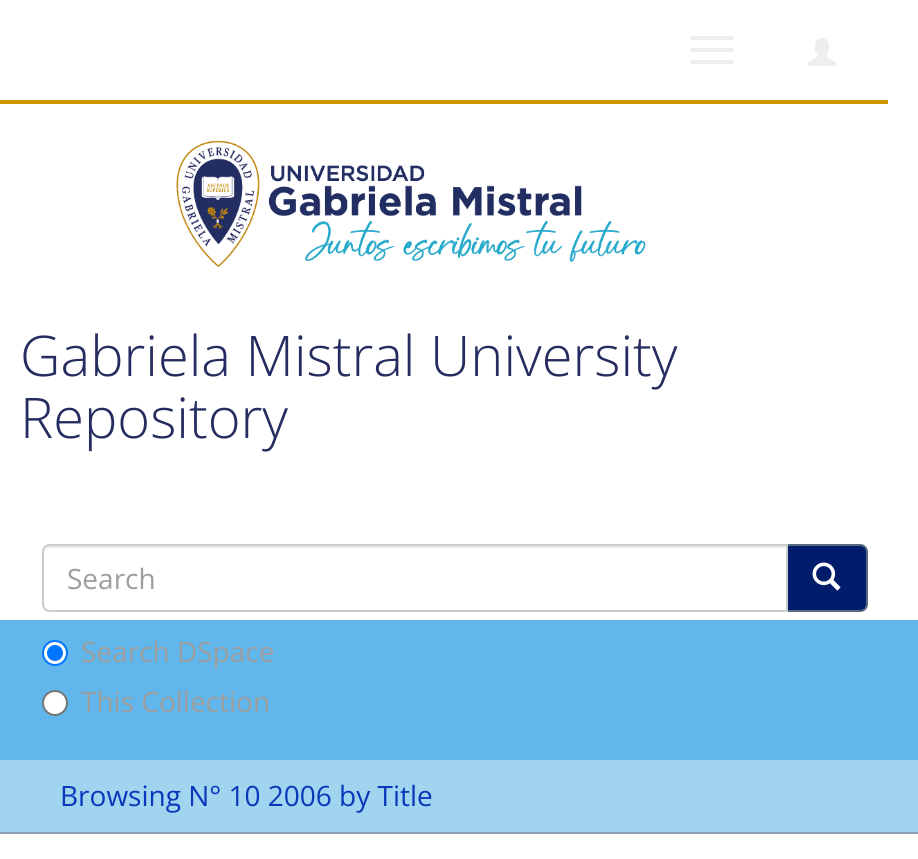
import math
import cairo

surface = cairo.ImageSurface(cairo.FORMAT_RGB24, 918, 859)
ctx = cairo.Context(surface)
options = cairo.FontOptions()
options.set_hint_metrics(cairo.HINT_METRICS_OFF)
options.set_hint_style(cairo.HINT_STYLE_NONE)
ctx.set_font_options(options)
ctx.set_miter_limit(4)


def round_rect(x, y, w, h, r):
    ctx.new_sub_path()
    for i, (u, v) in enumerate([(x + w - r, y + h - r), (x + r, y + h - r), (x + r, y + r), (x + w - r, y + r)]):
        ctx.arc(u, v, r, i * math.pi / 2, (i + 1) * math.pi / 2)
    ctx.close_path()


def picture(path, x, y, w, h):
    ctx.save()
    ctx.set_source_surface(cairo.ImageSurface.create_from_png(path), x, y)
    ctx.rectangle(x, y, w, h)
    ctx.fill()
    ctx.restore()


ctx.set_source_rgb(1, 1, 1)
ctx.paint()
ctx.set_source_rgb(0.38, 0.718, 0.922)
ctx.rectangle(0, 620, 918, 140)
ctx.fill()
ctx.set_source_rgb(0.796, 0.592, 0)
ctx.rectangle(0, 100, 888, 4)
ctx.fill()
ctx.set_source_rgb(0.933, 0.933, 0.933)
round_rect(690, 36, 44, 4, 2)
ctx.fill()
round_rect(690, 48, 44, 4, 2)
ctx.fill()
round_rect(690, 60, 44, 4, 2)
ctx.fill()
picture("img1.png", 808, 38, 28, 28)
picture("img2.png", 176, 140, 470, 128)
ctx.select_font_face("Open Sans Light")
ctx.set_font_size(56)
ctx.set_source_rgb(0.145, 0.173, 0.373)
ctx.move_to(20, 376)
ctx.show_text("Gabriela Mistral University")
ctx.move_to(20, 438)
ctx.show_text("Repository")
ctx.set_source_rgb(0, 0.11, 0.42)
ctx.new_path()
ctx.move_to(787, 545)
ctx.line_to(860, 545)
ctx.curve_to(864, 545, 867, 548, 867, 552)
ctx.line_to(867, 604)
ctx.curve_to(867, 608, 864, 611, 860, 611)
ctx.line_to(787, 611)
ctx.close_path()
ctx.fill_preserve()
ctx.set_source_rgb(0.337, 0.42, 0.506)
ctx.stroke()
ctx.set_source_rgb(1, 1, 1)
ctx.new_path()
ctx.move_to(50, 544)
ctx.line_to(788, 544)
ctx.line_to(788, 612)
ctx.line_to(50, 612)
ctx.curve_to(45.5, 612, 42, 608.5, 42, 604)
ctx.line_to(42, 552)
ctx.curve_to(42, 547.5, 45.5, 544, 50, 544)
ctx.close_path()
ctx.fill()
ctx.set_source_rgb(0.925, 0.925, 0.925)
ctx.new_path()
ctx.move_to(50, 548)
ctx.line_to(786, 548)
ctx.line_to(786, 546)
ctx.line_to(50, 546)
ctx.curve_to(47, 546, 44, 549, 44, 552)
ctx.line_to(44, 554)
ctx.curve_to(44, 551, 47, 548, 50, 548)
ctx.close_path()
ctx.fill()
ctx.new_path()
ctx.move_to(50, 545)
ctx.line_to(787, 545)
ctx.line_to(787, 611)
ctx.line_to(50, 611)
ctx.curve_to(46, 611, 43, 608, 43, 604)
ctx.line_to(43, 552)
ctx.curve_to(43, 548, 46, 545, 50, 545)
ctx.close_path()
ctx.set_source_rgb(0.8, 0.8, 0.8)
ctx.stroke()
ctx.select_font_face("Open Sans")
ctx.set_font_size(28)
ctx.set_source_rgb(0.616, 0.616, 0.616)
ctx.move_to(67, 589)
ctx.show_text("Search")
picture("img3.png", 812, 562, 29, 29)
ctx.set_source_rgb(1, 1, 1)
ctx.arc(55, 653, 12, 0, 2 * math.pi)
ctx.fill_preserve()
ctx.set_source_rgb(0, 0.459, 1)
ctx.stroke()
ctx.arc(55, 653, 8, 0, 2 * math.pi)
ctx.fill()
ctx.set_source_rgb(0.616, 0.616, 0.616)
ctx.move_to(81, 662)
ctx.show_text("Search DSpace")
ctx.set_source_rgb(1, 1, 1)
ctx.new_path()
ctx.arc(55, 703, 12, 0, 2 * math.pi)
ctx.fill_preserve()
ctx.set_source_rgb(0.463, 0.463, 0.463)
ctx.stroke()
ctx.set_source_rgb(0.616, 0.616, 0.616)
ctx.move_to(81, 712)
ctx.show_text("This Collection")
ctx.set_source_rgb(0.627, 0.831, 0.937)
ctx.rectangle(0, 760, 918, 72)
ctx.fill()
ctx.set_source_rgb(0.545, 0.62, 0.698)
ctx.rectangle(0, 832, 918, 2)
ctx.fill()
ctx.set_source_rgb(0.039, 0.22, 0.733)
ctx.move_to(60, 806)
ctx.show_text("Browsing N° 10 2006 by Title")
surface.write_to_png("page.png")
